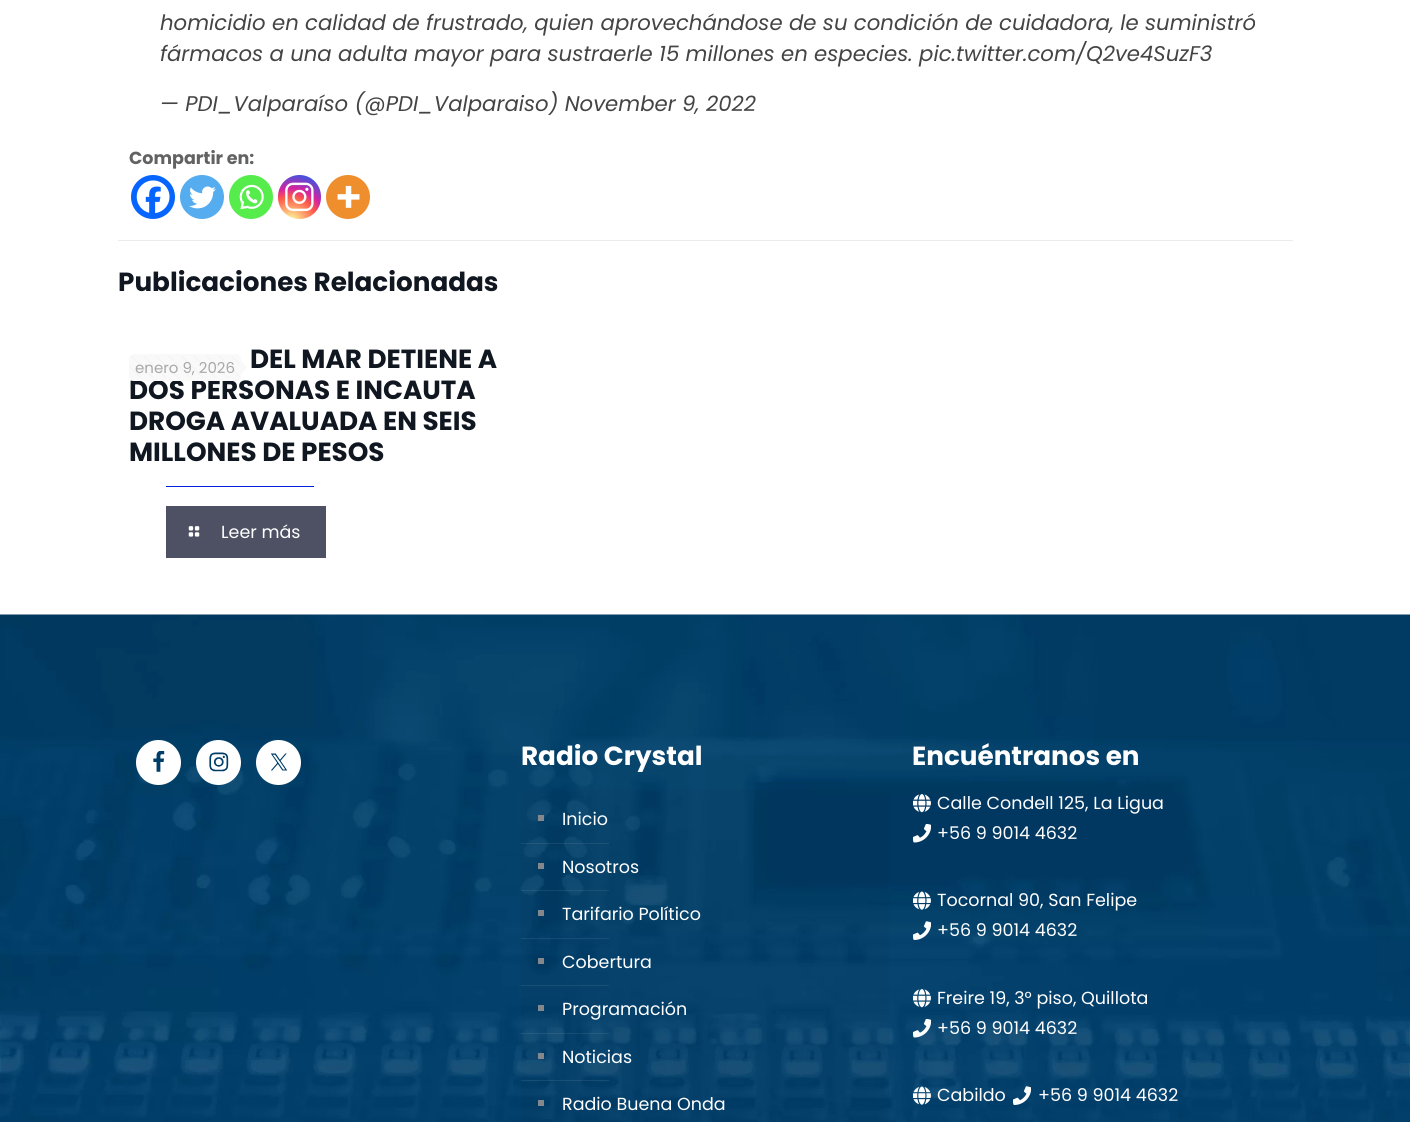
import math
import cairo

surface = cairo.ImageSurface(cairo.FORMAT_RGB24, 1410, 1122)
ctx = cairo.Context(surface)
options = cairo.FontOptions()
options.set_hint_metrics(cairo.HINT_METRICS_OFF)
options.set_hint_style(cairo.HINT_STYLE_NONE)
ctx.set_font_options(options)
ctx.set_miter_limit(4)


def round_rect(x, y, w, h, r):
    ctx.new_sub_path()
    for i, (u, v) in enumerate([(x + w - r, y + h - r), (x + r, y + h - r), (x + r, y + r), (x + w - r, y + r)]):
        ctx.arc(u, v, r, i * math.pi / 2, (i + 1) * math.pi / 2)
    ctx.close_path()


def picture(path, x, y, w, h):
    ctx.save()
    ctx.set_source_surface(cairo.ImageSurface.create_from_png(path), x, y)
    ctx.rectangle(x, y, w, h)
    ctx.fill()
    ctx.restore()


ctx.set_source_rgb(1, 1, 1)
ctx.paint()
ctx.select_font_face("Poppins", cairo.FONT_SLANT_ITALIC)
ctx.set_font_size(21.25)
ctx.set_source_rgb(0.267, 0.267, 0.267)
ctx.move_to(160, 30)
ctx.show_text("homicidio en calidad de frustrado, quien aprovechándose de su condición de cuidadora, le suministró")
ctx.move_to(160, 61)
ctx.show_text("fármacos a una adulta mayor para sustraerle 15 millones en especies. pic.twitter.com/Q2ve4SuzF3")
ctx.move_to(160, 111)
ctx.show_text("— PDI_Valparaíso (@PDI_Valparaiso) November 9, 2022")
ctx.select_font_face("Poppins", cairo.FONT_SLANT_NORMAL, cairo.FONT_WEIGHT_BOLD)
ctx.set_font_size(17.5)
ctx.set_source_rgb(0.384, 0.384, 0.384)
ctx.move_to(129, 164)
ctx.show_text("Compartir en:")
ctx.set_source_rgb(0.027, 0.396, 0.996)
ctx.new_path()
ctx.arc(153, 197, 22, 0, 2 * math.pi)
ctx.fill()
picture("img1.png", 136, 180, 34, 34)
ctx.set_source_rgb(0.333, 0.675, 0.933)
ctx.arc(202, 197, 22, 0, 2 * math.pi)
ctx.fill()
picture("img2.png", 189, 186, 27, 23)
ctx.set_source_rgb(0.333, 0.922, 0.298)
ctx.arc(251, 197, 22, 0, 2 * math.pi)
ctx.fill()
picture("img3.png", 239, 184, 25, 26)
gradient = cairo.RadialGradient(291, 222, 0, 291, 222, 56)
gradient.add_color_stop_rgba(0, 0.992, 0.957, 0.592, 1)
gradient.add_color_stop_rgba(0.05, 0.992, 0.957, 0.592, 1)
gradient.add_color_stop_rgba(0.45, 0.992, 0.349, 0.286, 1)
gradient.add_color_stop_rgba(0.6, 0.839, 0.141, 0.624, 1)
gradient.add_color_stop_rgba(0.9, 0.157, 0.353, 0.922, 1)
ctx.set_source(gradient)
round_rect(278, 175, 43, 44, 21.5)
ctx.fill()
picture("img4.png", 285, 182, 29, 30)
ctx.set_source_rgb(0.933, 0.557, 0.176)
ctx.arc(348, 197, 22, 0, 2 * math.pi)
ctx.fill()
picture("img5.png", 337, 185, 23, 23)
ctx.set_source_rgb(0.922, 0.922, 0.922)
ctx.rectangle(118, 240, 1175, 1)
ctx.fill()
ctx.set_font_size(26.25)
ctx.set_source_rgb(0.063, 0.09, 0.125)
ctx.move_to(118, 291)
ctx.show_text("Publicaciones Relacionadas")
ctx.move_to(250, 368)
ctx.show_text("DEL MAR DETIENE A")
ctx.move_to(129, 399)
ctx.show_text("DOS PERSONAS E INCAUTA")
ctx.move_to(129, 430)
ctx.show_text("DROGA AVALUADA EN SEIS")
ctx.move_to(129, 461)
ctx.show_text("MILLONES DE PESOS")
ctx.set_source_rgb(0, 0.122, 0.871)
ctx.rectangle(166, 486, 148, 1)
ctx.fill()
ctx.set_source_rgb(0.306, 0.318, 0.388)
ctx.rectangle(166, 506, 160, 52)
ctx.fill()
picture("img6.png", 188, 526, 12, 11)
ctx.select_font_face("Poppins")
ctx.set_font_size(17.5)
ctx.set_source_rgb(1, 1, 1)
ctx.move_to(221, 538)
ctx.show_text("Leer más")
ctx.set_source_rgb(0.973, 0.973, 0.973)
round_rect(129, 354, 112, 27, 5)
ctx.fill()
picture("img7.png", 129, 356, 111, 22)
ctx.set_font_size(15)
ctx.set_source_rgb(0.659, 0.659, 0.659)
ctx.move_to(135, 373)
ctx.show_text("enero 9, 2026")
ctx.set_source_rgb(0.973, 0.973, 0.973)
ctx.new_path()
ctx.move_to(241, 374)
ctx.line_to(241, 361)
ctx.line_to(247.5, 367.5)
ctx.close_path()
ctx.fill()
picture("img8.png", 0, 614, 1410, 508)
ctx.set_source_rgb(1, 1, 1)
ctx.arc(158.5, 762.5, 22.5, 0, 2 * math.pi)
ctx.fill()
picture("img9.png", 153, 751, 12, 21)
ctx.arc(218.5, 762.5, 22.5, 0, 2 * math.pi)
ctx.fill()
picture("img10.png", 209, 752, 20, 20)
ctx.arc(278.5, 762.5, 22.5, 0, 2 * math.pi)
ctx.fill()
picture("img11.png", 270, 753, 18, 18)
ctx.select_font_face("Poppins", cairo.FONT_SLANT_NORMAL, cairo.FONT_WEIGHT_BOLD)
ctx.set_font_size(26.25)
ctx.move_to(521, 765)
ctx.show_text("Radio Crystal")
ctx.set_source_rgba(0, 0, 0, 0.03)
ctx.rectangle(521, 790, 368, 332)
ctx.fill()
ctx.set_source_rgb(0.518, 0.533, 0.549)
ctx.rectangle(538, 815, 6, 6)
ctx.fill()
ctx.select_font_face("Poppins")
ctx.set_font_size(17.5)
ctx.set_source_rgb(1, 1, 1)
ctx.move_to(562, 825)
ctx.show_text("Inicio")
ctx.set_source_rgba(1, 1, 1, 0.08)
ctx.rectangle(521, 843, 88, 1)
ctx.fill()
ctx.set_source_rgb(0.518, 0.533, 0.549)
ctx.rectangle(538, 863, 6, 6)
ctx.fill()
ctx.set_source_rgb(1, 1, 1)
ctx.move_to(562, 873)
ctx.show_text("Nosotros")
ctx.set_source_rgba(1, 1, 1, 0.08)
ctx.rectangle(521, 890, 88, 1)
ctx.fill()
ctx.set_source_rgb(0.518, 0.533, 0.549)
ctx.rectangle(538, 910, 6, 6)
ctx.fill()
ctx.set_source_rgb(1, 1, 1)
ctx.move_to(562, 920)
ctx.show_text("Tarifario Político")
ctx.set_source_rgba(1, 1, 1, 0.08)
ctx.rectangle(521, 938, 88, 1)
ctx.fill()
ctx.set_source_rgb(0.518, 0.533, 0.549)
ctx.rectangle(538, 958, 6, 6)
ctx.fill()
ctx.set_source_rgb(1, 1, 1)
ctx.move_to(562, 968)
ctx.show_text("Cobertura")
ctx.set_source_rgb(0.098, 0.314, 0.463)
ctx.rectangle(521, 985, 88, 1)
ctx.fill()
ctx.set_source_rgb(0.518, 0.533, 0.549)
ctx.rectangle(538, 1005, 6, 6)
ctx.fill()
ctx.set_source_rgb(1, 1, 1)
ctx.move_to(562, 1015)
ctx.show_text("Programación")
ctx.set_source_rgba(1, 1, 1, 0.08)
ctx.rectangle(521, 1033, 88, 1)
ctx.fill()
ctx.set_source_rgb(0.518, 0.533, 0.549)
ctx.rectangle(538, 1053, 6, 6)
ctx.fill()
ctx.set_source_rgb(1, 1, 1)
ctx.move_to(562, 1063)
ctx.show_text("Noticias")
ctx.set_source_rgba(1, 1, 1, 0.08)
ctx.rectangle(521, 1080, 88, 1)
ctx.fill()
ctx.set_source_rgb(0.518, 0.533, 0.549)
ctx.rectangle(538, 1100, 6, 6)
ctx.fill()
ctx.set_source_rgb(1, 1, 1)
ctx.move_to(562, 1110)
ctx.show_text("Radio Buena Onda")
ctx.select_font_face("Poppins", cairo.FONT_SLANT_NORMAL, cairo.FONT_WEIGHT_BOLD)
ctx.set_font_size(26.25)
ctx.move_to(912, 765)
ctx.show_text("Encuéntranos en")
picture("img12.png", 913, 794, 18, 19)
ctx.select_font_face("Poppins")
ctx.set_font_size(17.5)
ctx.move_to(937, 809)
ctx.show_text("Calle Condell 125, La Ligua")
picture("img13.png", 913, 824, 18, 19)
ctx.move_to(937, 839)
ctx.show_text("+56 9 9014 4632")
picture("img14.png", 913, 891, 18, 19)
ctx.move_to(937, 906)
ctx.show_text("Tocornal 90, San Felipe")
picture("img15.png", 913, 921, 18, 19)
ctx.move_to(937, 936)
ctx.show_text("+56 9 9014 4632")
picture("img16.png", 913, 989, 18, 19)
ctx.move_to(937, 1004)
ctx.show_text("Freire 19, 3° piso, Quillota")
picture("img17.png", 913, 1019, 18, 19)
ctx.move_to(937, 1034)
ctx.show_text("+56 9 9014 4632")
picture("img18.png", 913, 1086, 18, 19)
ctx.move_to(937, 1101)
ctx.show_text("Cabildo")
picture("img19.png", 1013, 1086, 18, 19)
ctx.move_to(1038, 1101)
ctx.show_text("+56 9 9014 4632")
surface.write_to_png("page.png")
